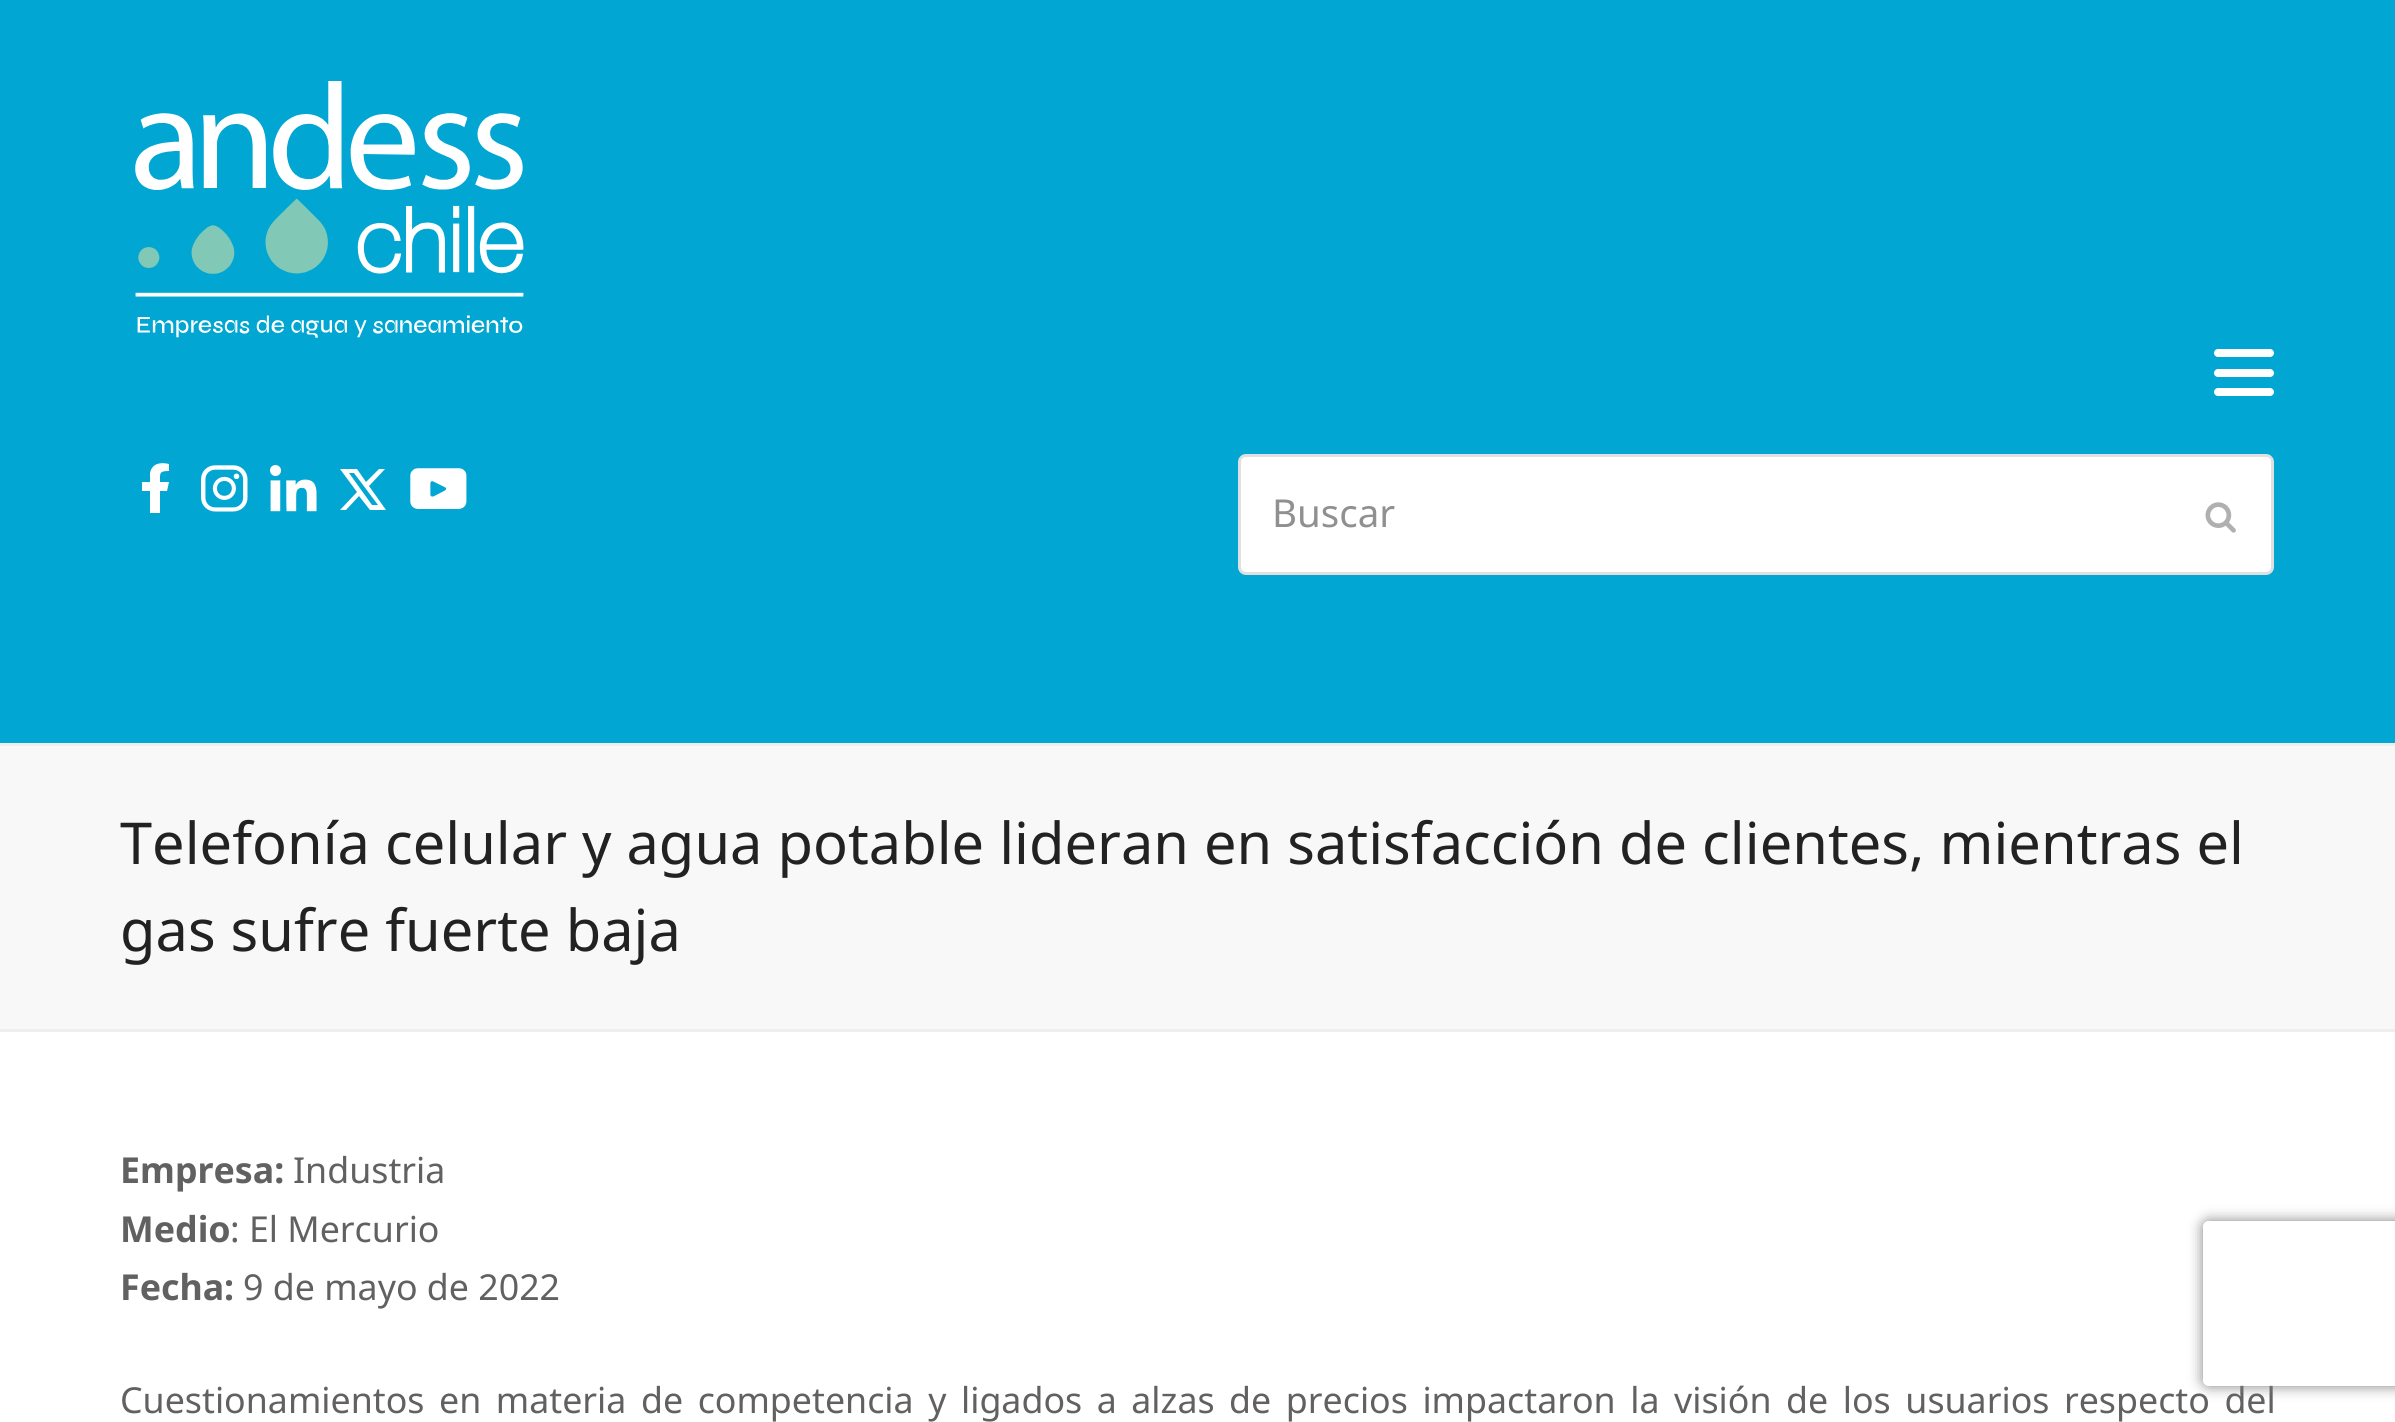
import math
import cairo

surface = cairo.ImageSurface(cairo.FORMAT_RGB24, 2395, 1422)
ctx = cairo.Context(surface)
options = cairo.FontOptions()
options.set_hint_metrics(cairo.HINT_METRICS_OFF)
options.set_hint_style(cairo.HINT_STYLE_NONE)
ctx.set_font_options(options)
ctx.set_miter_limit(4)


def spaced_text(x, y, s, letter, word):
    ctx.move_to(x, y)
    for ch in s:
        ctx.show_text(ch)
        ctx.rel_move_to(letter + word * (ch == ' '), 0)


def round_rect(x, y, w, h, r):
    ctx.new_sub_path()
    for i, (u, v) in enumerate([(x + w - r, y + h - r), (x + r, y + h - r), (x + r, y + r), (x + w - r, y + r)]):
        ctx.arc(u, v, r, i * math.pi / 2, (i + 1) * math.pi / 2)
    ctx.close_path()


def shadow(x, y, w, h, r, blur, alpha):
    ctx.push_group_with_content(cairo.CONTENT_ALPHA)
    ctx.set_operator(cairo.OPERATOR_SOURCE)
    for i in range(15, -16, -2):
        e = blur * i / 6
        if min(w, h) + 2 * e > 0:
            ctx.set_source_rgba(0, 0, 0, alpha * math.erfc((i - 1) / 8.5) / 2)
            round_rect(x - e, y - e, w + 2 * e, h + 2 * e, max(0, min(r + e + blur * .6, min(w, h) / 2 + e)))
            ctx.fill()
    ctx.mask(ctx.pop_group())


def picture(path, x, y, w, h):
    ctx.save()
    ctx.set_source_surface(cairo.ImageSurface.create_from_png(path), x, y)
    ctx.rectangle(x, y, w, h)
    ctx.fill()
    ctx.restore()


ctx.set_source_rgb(1, 1, 1)
ctx.paint()
ctx.set_source_rgb(0.004, 0.655, 0.824)
ctx.rectangle(0, 0, 2395, 743)
ctx.fill()
picture("img1.png", 135, 81, 389, 257)
ctx.set_source_rgb(1, 1, 1)
round_rect(2214, 369, 60, 8, 4)
ctx.fill()
round_rect(2214, 349, 60, 8, 4)
ctx.fill()
round_rect(2214, 388, 60, 8, 4)
ctx.fill()
ctx.new_path()
ctx.move_to(167, 491)
ctx.line_to(169, 482)
ctx.line_to(160, 482)
ctx.curve_to(160, 473, 159, 471, 169, 471)
ctx.line_to(169, 464)
ctx.curve_to(161, 462, 152, 463, 150, 473)
ctx.line_to(150, 482)
ctx.line_to(142, 482)
ctx.line_to(142, 491)
ctx.line_to(150, 491)
ctx.line_to(150, 513)
ctx.line_to(160, 513)
ctx.line_to(160, 491)
ctx.close_path()
ctx.fill()
picture("img2.png", 201, 465, 47, 47)
picture("img3.png", 270, 465, 47, 47)
ctx.new_path()
ctx.move_to(369, 486)
ctx.line_to(385, 469)
ctx.line_to(379, 469)
ctx.line_to(366, 482)
ctx.line_to(357, 469)
ctx.line_to(340, 469)
ctx.line_to(357, 492)
ctx.line_to(340, 510)
ctx.line_to(346, 510)
ctx.line_to(359, 496)
ctx.line_to(370, 510)
ctx.line_to(386, 510)
ctx.close_path()
ctx.move_to(349, 473)
ctx.line_to(354, 473)
ctx.line_to(378, 505)
ctx.line_to(372, 505)
ctx.close_path()
ctx.fill()
picture("img4.png", 410, 468, 57, 41)
round_rect(1239.5, 455.5, 1033, 118, 6.5)
ctx.fill_preserve()
ctx.set_source_rgb(0.878, 0.878, 0.878)
ctx.set_line_width(3)
ctx.stroke()
ctx.select_font_face("Noto Sans")
ctx.set_font_size(38.5)
ctx.set_source_rgb(0.565, 0.565, 0.565)
ctx.move_to(1272, 527)
ctx.show_text("Buscar")
picture("img5.png", 2205, 502, 31, 31)
ctx.set_source_rgb(0.969, 0.969, 0.969)
ctx.rectangle(0, 746, 2395, 283)
ctx.fill()
ctx.set_source_rgb(0.933, 0.933, 0.933)
ctx.rectangle(0, 743, 2395, 3)
ctx.fill()
ctx.rectangle(0, 1029, 2395, 3)
ctx.fill()
ctx.set_font_size(57.75)
ctx.set_source_rgb(0.133, 0.133, 0.133)
ctx.move_to(120, 864)
ctx.show_text("Telefonía celular y agua potable lideran en satisfacción de clientes, mientras el")
ctx.move_to(120, 951)
ctx.show_text("gas sufre fuerte baja")
ctx.select_font_face("Noto Sans", cairo.FONT_SLANT_NORMAL, cairo.FONT_WEIGHT_BOLD)
ctx.set_font_size(35.75)
ctx.set_source_rgb(0.38, 0.38, 0.38)
ctx.move_to(120, 1183)
ctx.show_text("Empresa:")
ctx.select_font_face("Noto Sans")
ctx.move_to(293, 1183)
ctx.show_text("Industria")
ctx.select_font_face("Noto Sans", cairo.FONT_SLANT_NORMAL, cairo.FONT_WEIGHT_BOLD)
ctx.move_to(120, 1242)
ctx.show_text("Medio")
ctx.select_font_face("Noto Sans")
ctx.move_to(230, 1242)
ctx.show_text(": El Mercurio")
ctx.select_font_face("Noto Sans", cairo.FONT_SLANT_NORMAL, cairo.FONT_WEIGHT_BOLD)
ctx.move_to(120, 1300)
ctx.show_text("Fecha:")
ctx.select_font_face("Noto Sans")
ctx.move_to(243, 1300)
ctx.show_text("9 de mayo de 2022")
spaced_text(120, 1413, "Cuestionamientos en materia de competencia y ligados a alzas de precios impactaron la visión de los usuarios respecto del", 0, 5.25)
ctx.save()
ctx.set_fill_rule(cairo.FILL_RULE_EVEN_ODD)
ctx.new_path()
ctx.move_to(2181, 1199)
ctx.line_to(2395, 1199)
ctx.line_to(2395, 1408)
ctx.line_to(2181, 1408)
ctx.close_path()
ctx.move_to(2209, 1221)
ctx.line_to(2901, 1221)
ctx.curve_to(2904.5, 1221, 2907, 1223.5, 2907, 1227)
ctx.line_to(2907, 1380)
ctx.curve_to(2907, 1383.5, 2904.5, 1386, 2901, 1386)
ctx.line_to(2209, 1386)
ctx.curve_to(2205.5, 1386, 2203, 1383.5, 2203, 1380)
ctx.line_to(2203, 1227)
ctx.curve_to(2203, 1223.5, 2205.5, 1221, 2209, 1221)
ctx.close_path()
ctx.clip()
ctx.set_source_rgb(0.502, 0.502, 0.502)
shadow(2203, 1221, 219, 165, 6, 7, 1)
ctx.restore()
surface.write_to_png("page.png")
